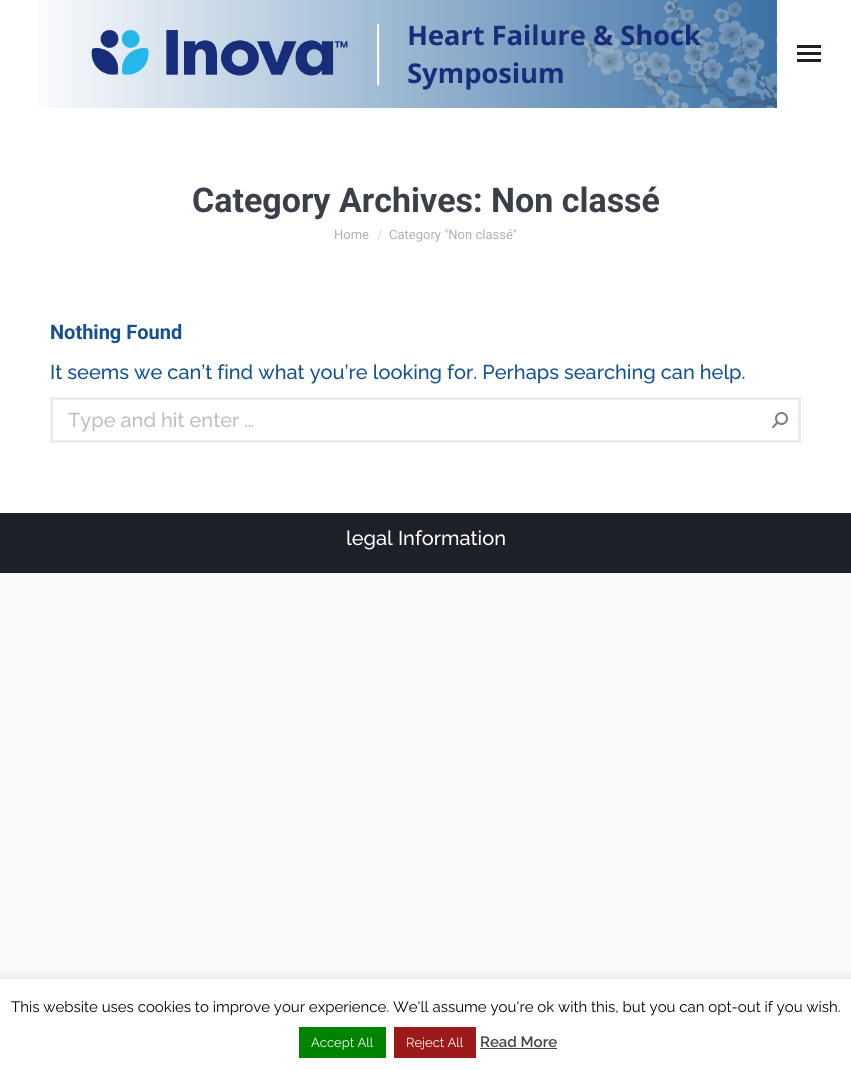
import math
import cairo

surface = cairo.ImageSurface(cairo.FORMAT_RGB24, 851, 1070)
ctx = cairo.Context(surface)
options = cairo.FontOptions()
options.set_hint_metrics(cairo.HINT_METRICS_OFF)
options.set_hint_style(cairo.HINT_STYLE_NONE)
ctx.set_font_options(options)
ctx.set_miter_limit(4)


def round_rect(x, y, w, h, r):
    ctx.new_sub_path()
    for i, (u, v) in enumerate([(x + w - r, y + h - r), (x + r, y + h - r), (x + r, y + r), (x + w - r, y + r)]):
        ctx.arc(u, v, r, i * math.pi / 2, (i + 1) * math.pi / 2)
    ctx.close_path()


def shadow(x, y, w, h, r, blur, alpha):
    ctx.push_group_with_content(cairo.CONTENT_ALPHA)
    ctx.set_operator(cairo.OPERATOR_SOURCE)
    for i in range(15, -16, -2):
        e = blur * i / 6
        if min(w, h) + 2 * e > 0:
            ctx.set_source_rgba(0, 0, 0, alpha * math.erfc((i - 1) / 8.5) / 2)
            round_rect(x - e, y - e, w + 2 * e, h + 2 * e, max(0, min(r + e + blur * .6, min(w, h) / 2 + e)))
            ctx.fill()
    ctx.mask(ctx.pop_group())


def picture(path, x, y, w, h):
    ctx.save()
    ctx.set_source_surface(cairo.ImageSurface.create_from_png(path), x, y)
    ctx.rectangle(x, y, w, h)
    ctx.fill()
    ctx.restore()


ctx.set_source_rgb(0.973, 0.973, 0.976)
ctx.paint()
ctx.set_source_rgb(1, 1, 1)
ctx.rectangle(0, 0, 851, 513)
ctx.fill()
picture("img1.png", 38, 0, 739, 108)
ctx.set_source_rgb(0.114, 0.125, 0.157)
ctx.rectangle(797, 45, 24, 3)
ctx.fill()
ctx.rectangle(797, 52, 24, 3)
ctx.fill()
ctx.rectangle(797, 59, 24, 3)
ctx.fill()
ctx.select_font_face("Roboto", cairo.FONT_SLANT_NORMAL, cairo.FONT_WEIGHT_BOLD)
ctx.set_font_size(34)
ctx.set_source_rgb(0.231, 0.247, 0.29)
ctx.move_to(192, 212)
ctx.show_text("Category Archives: Non classé")
ctx.select_font_face("Roboto")
ctx.set_font_size(13)
ctx.set_source_rgb(0.678, 0.69, 0.714)
ctx.move_to(334, 239)
ctx.show_text("Home")
ctx.set_source_rgb(0.839, 0.847, 0.859)
ctx.move_to(377, 239)
ctx.show_text("/")
ctx.set_source_rgb(0.678, 0.69, 0.714)
ctx.move_to(389, 239)
ctx.show_text("Category \"Non classé\"")
ctx.select_font_face("Roboto", cairo.FONT_SLANT_NORMAL, cairo.FONT_WEIGHT_BOLD)
ctx.set_font_size(20)
ctx.set_source_rgb(0.075, 0.318, 0.565)
ctx.move_to(50, 339)
ctx.show_text("Nothing Found")
ctx.select_font_face("Raleway Medium")
ctx.move_to(50, 379)
ctx.show_text("It seems we can’t find what you’re looking for. Perhaps searching can help.")
ctx.rectangle(51.5, 398.5, 748, 43)
ctx.set_source_rgb(0.922, 0.925, 0.929)
ctx.set_line_width(3)
ctx.stroke()
ctx.set_source_rgb(0.737, 0.745, 0.761)
ctx.move_to(68, 427)
ctx.show_text("Type and hit enter …")
picture("img2.png", 772, 412, 16, 16)
ctx.set_source_rgb(0.114, 0.125, 0.157)
ctx.rectangle(0, 513, 851, 60)
ctx.fill()
ctx.set_source_rgb(1, 1, 1)
ctx.move_to(346, 545)
ctx.show_text("legal Information")
ctx.set_source_rgb(0.675, 0.671, 0.671)
shadow(0, 978, 851, 91, 0, 5, 0.3)
ctx.set_source_rgb(1, 1, 1)
ctx.rectangle(0, 979, 851, 91)
ctx.fill()
ctx.select_font_face("Raleway")
ctx.set_font_size(15)
ctx.set_source_rgb(0, 0, 0)
ctx.move_to(11, 1012)
ctx.show_text("This website uses cookies to improve your experience. We'll assume you're ok with this, but you can opt-out if you wish.")
ctx.set_source_rgb(0, 0.514, 0)
ctx.rectangle(299, 1027, 87, 31)
ctx.fill()
ctx.set_font_size(13)
ctx.set_source_rgb(1, 1, 1)
ctx.move_to(311, 1047)
ctx.show_text("Accept All")
ctx.set_source_rgb(0.612, 0.102, 0.102)
ctx.rectangle(394, 1027, 82, 31)
ctx.fill()
ctx.set_source_rgb(1, 1, 1)
ctx.move_to(406, 1047)
ctx.show_text("Reject All")
ctx.select_font_face("Raleway SemiBold")
ctx.set_font_size(15)
ctx.set_source_rgb(0.267, 0.267, 0.267)
ctx.move_to(480, 1047)
ctx.show_text("Read More")
ctx.rectangle(480, 1048, 77, 1)
ctx.fill()
surface.write_to_png("page.png")
